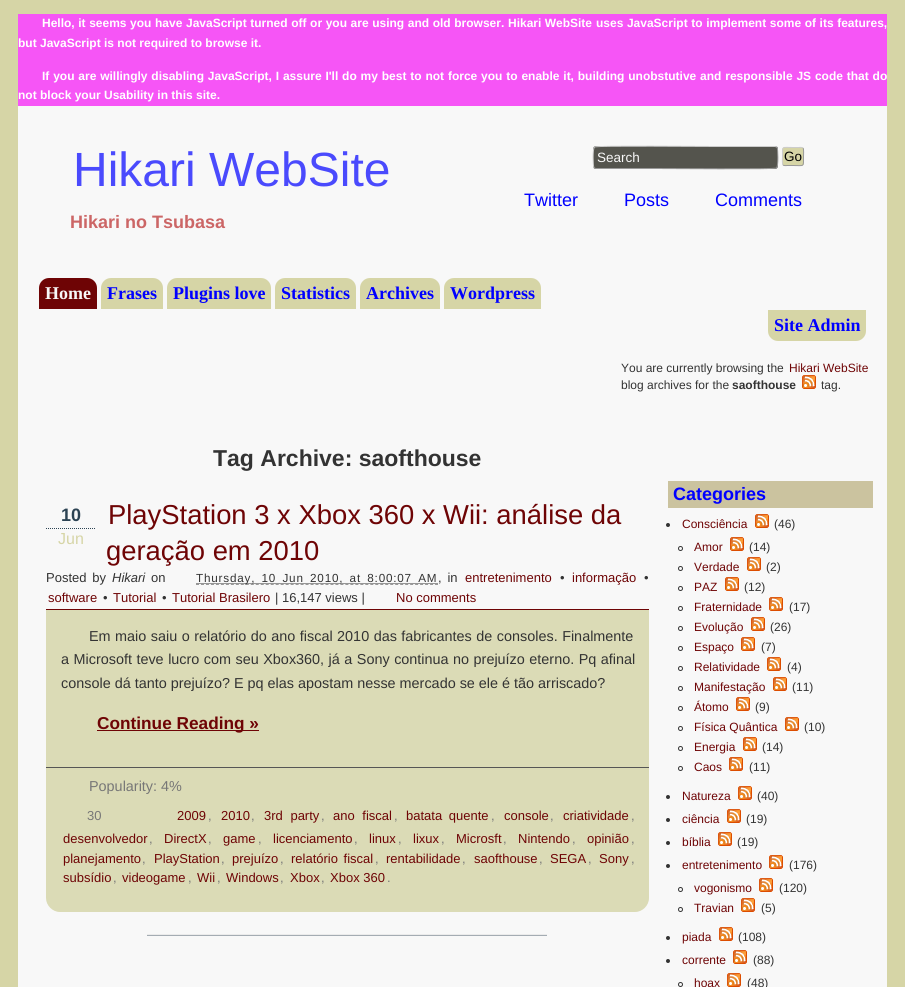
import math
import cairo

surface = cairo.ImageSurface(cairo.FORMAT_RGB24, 905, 987)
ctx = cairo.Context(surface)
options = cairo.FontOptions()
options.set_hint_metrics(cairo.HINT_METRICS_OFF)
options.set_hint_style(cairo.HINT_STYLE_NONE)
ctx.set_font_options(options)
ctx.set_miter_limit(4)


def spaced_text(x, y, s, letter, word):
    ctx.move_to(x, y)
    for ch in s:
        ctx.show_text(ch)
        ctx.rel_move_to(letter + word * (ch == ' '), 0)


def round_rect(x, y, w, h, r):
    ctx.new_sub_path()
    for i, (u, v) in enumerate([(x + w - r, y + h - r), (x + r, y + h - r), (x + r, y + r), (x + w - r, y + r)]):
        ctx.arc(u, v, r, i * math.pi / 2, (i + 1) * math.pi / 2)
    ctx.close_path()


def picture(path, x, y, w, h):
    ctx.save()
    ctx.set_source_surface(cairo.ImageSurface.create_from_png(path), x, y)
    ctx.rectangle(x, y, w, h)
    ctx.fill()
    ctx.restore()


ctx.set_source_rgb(0.839, 0.835, 0.651)
ctx.paint()
ctx.set_source_rgb(0.969, 0.969, 0.969)
ctx.rectangle(18, 106, 869, 881)
ctx.fill()
ctx.set_source_rgb(0.961, 0.333, 0.961)
ctx.rectangle(18, 14, 869, 92)
ctx.fill()
ctx.select_font_face("Liberation Sans", cairo.FONT_SLANT_NORMAL, cairo.FONT_WEIGHT_BOLD)
ctx.set_font_size(12)
ctx.set_source_rgb(1, 1, 1)
spaced_text(42, 27, "Hello, it seems you have JavaScript turned off or you are using and old browser.", 0, 0.25)
ctx.move_to(508, 27)
ctx.show_text("Hikari WebSite")
spaced_text(596, 27, "uses JavaScript to implement some of its features,", 0, 0.25)
ctx.move_to(18, 47)
ctx.show_text("but JavaScript is not required to browse it.")
spaced_text(42, 80, "If you are willingly disabling JavaScript, I assure I'll do my best to not force you to enable it, building unobstutive and responsible JS code that do", 0, 0.5)
ctx.move_to(18, 99)
ctx.show_text("not block your Usability in this site.")
ctx.select_font_face("Liberation Sans")
ctx.set_font_size(48)
ctx.set_source_rgb(0.29, 0.29, 0.992)
ctx.move_to(73, 186)
ctx.show_text("Hikari WebSite")
ctx.select_font_face("Liberation Sans", cairo.FONT_SLANT_NORMAL, cairo.FONT_WEIGHT_BOLD)
ctx.set_font_size(18)
ctx.set_source_rgb(0.8, 0.4, 0.4)
ctx.move_to(70, 228)
ctx.show_text("Hikari no Tsubasa")
ctx.set_source_rgb(0.329, 0.329, 0.302)
round_rect(593, 146, 185, 23, 3)
ctx.fill()
ctx.new_path()
ctx.move_to(777, 147)
ctx.curve_to(778, 148.5, 778.5, 166.5, 776.5, 168)
ctx.curve_to(775, 169.5, 667, 168.5, 655.5, 168.5)
ctx.line_to(596, 168.5)
ctx.line_to(594, 168)
ctx.set_source_rgb(0.6, 0.6, 0.6)
ctx.set_line_width(1)
ctx.stroke()
ctx.new_path()
ctx.move_to(594, 168)
ctx.curve_to(593, 166.5, 592.5, 148.5, 594.5, 147)
ctx.curve_to(596, 145.5, 704, 146.5, 715.5, 146.5)
ctx.line_to(775, 146.5)
ctx.line_to(777, 147)
ctx.set_source_rgb(0.8, 0.8, 0.8)
ctx.stroke()
ctx.select_font_face("Liberation Sans")
ctx.set_font_size(13.5)
ctx.set_source_rgb(0.969, 0.969, 0.969)
ctx.move_to(597, 162)
ctx.show_text("Search")
ctx.set_source_rgb(0.839, 0.835, 0.651)
round_rect(782, 147, 22, 19, 3)
ctx.fill()
ctx.new_path()
ctx.move_to(803, 148)
ctx.curve_to(804, 149.5, 803.5, 154.5, 803.5, 156.5)
ctx.curve_to(803.5, 167.5, 804.5, 165.5, 793, 165.5)
ctx.line_to(787.5, 165.5)
ctx.curve_to(786.5, 165.5, 784.5, 166, 783, 165)
ctx.set_source_rgb(0.6, 0.6, 0.6)
ctx.stroke()
ctx.new_path()
ctx.move_to(783, 165)
ctx.curve_to(782, 163.5, 782.5, 158.5, 782.5, 156.5)
ctx.curve_to(782.5, 145.5, 781.5, 147.5, 793, 147.5)
ctx.line_to(798.5, 147.5)
ctx.curve_to(799.5, 147.5, 801.5, 147, 803, 148)
ctx.set_source_rgb(0.8, 0.8, 0.8)
ctx.stroke()
ctx.set_source_rgb(0, 0, 0)
ctx.move_to(784, 161)
ctx.show_text("Go")
ctx.set_font_size(18)
ctx.set_source_rgb(0, 0, 1)
ctx.move_to(524, 206)
ctx.show_text("Twitter")
ctx.move_to(624, 206)
ctx.show_text("Posts")
ctx.move_to(715, 206)
ctx.show_text("Comments")
ctx.set_source_rgb(0.431, 0.016, 0.02)
ctx.new_path()
ctx.move_to(49, 278)
ctx.line_to(87, 278)
ctx.curve_to(92.5, 278, 97, 282.5, 97, 288)
ctx.line_to(97, 309)
ctx.line_to(39, 309)
ctx.line_to(39, 288)
ctx.curve_to(39, 282.5, 43.5, 278, 49, 278)
ctx.close_path()
ctx.fill()
ctx.select_font_face("Liberation Serif", cairo.FONT_SLANT_NORMAL, cairo.FONT_WEIGHT_BOLD)
ctx.set_source_rgb(0.969, 0.969, 0.969)
ctx.move_to(45, 299)
ctx.show_text("Home")
ctx.set_source_rgb(0.839, 0.835, 0.651)
ctx.new_path()
ctx.move_to(111, 278)
ctx.line_to(153, 278)
ctx.curve_to(158.5, 278, 163, 282.5, 163, 288)
ctx.line_to(163, 309)
ctx.line_to(101, 309)
ctx.line_to(101, 288)
ctx.curve_to(101, 282.5, 105.5, 278, 111, 278)
ctx.close_path()
ctx.fill()
ctx.set_source_rgb(0, 0, 1)
ctx.move_to(107, 299)
ctx.show_text("Frases")
ctx.set_source_rgb(0.839, 0.835, 0.651)
ctx.new_path()
ctx.move_to(177, 278)
ctx.line_to(261, 278)
ctx.curve_to(266.5, 278, 271, 282.5, 271, 288)
ctx.line_to(271, 309)
ctx.line_to(167, 309)
ctx.line_to(167, 288)
ctx.curve_to(167, 282.5, 171.5, 278, 177, 278)
ctx.close_path()
ctx.fill()
ctx.set_source_rgb(0, 0, 1)
ctx.move_to(173, 299)
ctx.show_text("Plugins love")
ctx.set_source_rgb(0.839, 0.835, 0.651)
ctx.new_path()
ctx.move_to(285, 278)
ctx.line_to(346, 278)
ctx.curve_to(351.5, 278, 356, 282.5, 356, 288)
ctx.line_to(356, 309)
ctx.line_to(275, 309)
ctx.line_to(275, 288)
ctx.curve_to(275, 282.5, 279.5, 278, 285, 278)
ctx.close_path()
ctx.fill()
ctx.set_source_rgb(0, 0, 1)
ctx.move_to(281, 299)
ctx.show_text("Statistics")
ctx.set_source_rgb(0.839, 0.835, 0.651)
ctx.new_path()
ctx.move_to(370, 278)
ctx.line_to(430, 278)
ctx.curve_to(435.5, 278, 440, 282.5, 440, 288)
ctx.line_to(440, 309)
ctx.line_to(360, 309)
ctx.line_to(360, 288)
ctx.curve_to(360, 282.5, 364.5, 278, 370, 278)
ctx.close_path()
ctx.fill()
ctx.set_source_rgb(0, 0, 1)
ctx.move_to(366, 299)
ctx.show_text("Archives")
ctx.set_source_rgb(0.839, 0.835, 0.651)
ctx.new_path()
ctx.move_to(454, 278)
ctx.line_to(531, 278)
ctx.curve_to(536.5, 278, 541, 282.5, 541, 288)
ctx.line_to(541, 309)
ctx.line_to(444, 309)
ctx.line_to(444, 288)
ctx.curve_to(444, 282.5, 448.5, 278, 454, 278)
ctx.close_path()
ctx.fill()
ctx.set_source_rgb(0, 0, 1)
ctx.move_to(450, 299)
ctx.show_text("Wordpress")
ctx.set_source_rgb(0.839, 0.835, 0.651)
ctx.new_path()
ctx.move_to(768, 310)
ctx.line_to(866, 310)
ctx.line_to(866, 331)
ctx.curve_to(866, 336.5, 861.5, 341, 856, 341)
ctx.line_to(778, 341)
ctx.curve_to(772.5, 341, 768, 336.5, 768, 331)
ctx.close_path()
ctx.fill()
ctx.set_source_rgb(0, 0, 1)
ctx.move_to(774, 331)
ctx.show_text("Site Admin")
ctx.select_font_face("Liberation Sans")
ctx.set_font_size(12)
ctx.set_source_rgb(0.2, 0.2, 0.2)
ctx.move_to(621, 372)
ctx.show_text("You are currently browsing the")
ctx.set_source_rgb(0.431, 0.016, 0.02)
ctx.move_to(789, 372)
ctx.show_text("Hikari WebSite")
ctx.set_source_rgb(0.2, 0.2, 0.2)
ctx.move_to(621, 389)
ctx.show_text("blog archives for the")
ctx.select_font_face("Liberation Sans", cairo.FONT_SLANT_NORMAL, cairo.FONT_WEIGHT_BOLD)
ctx.move_to(732, 389)
ctx.show_text("saofthouse")
picture("img1.png", 802, 375, 14, 14)
ctx.select_font_face("Liberation Sans")
ctx.move_to(821, 389)
ctx.show_text("tag.")
ctx.select_font_face("Liberation Sans", cairo.FONT_SLANT_NORMAL, cairo.FONT_WEIGHT_BOLD)
ctx.set_font_size(23)
ctx.move_to(213, 466)
ctx.show_text("Tag Archive: saofthouse")
ctx.new_path()
ctx.move_to(46, 528.5)
ctx.line_to(96, 528.5)
ctx.set_source_rgb(0.173, 0.263, 0.325)
ctx.set_dash([1, 1])
ctx.stroke()
ctx.set_font_size(18)
ctx.move_to(61, 521)
ctx.show_text("10")
ctx.select_font_face("Liberation Sans")
ctx.set_font_size(16)
ctx.set_source_rgb(0.839, 0.835, 0.651)
ctx.move_to(58, 544)
ctx.show_text("Jun")
ctx.set_font_size(27.4)
ctx.set_source_rgb(0.431, 0.016, 0.02)
ctx.move_to(108, 524)
ctx.show_text("PlayStation 3 x Xbox 360 x Wii: análise da")
ctx.move_to(106, 560)
ctx.show_text("geração em 2010")
ctx.set_font_size(13)
ctx.set_source_rgb(0.2, 0.2, 0.2)
spaced_text(46, 582, "Posted by", 0, 2.25)
ctx.select_font_face("Liberation Sans", cairo.FONT_SLANT_ITALIC)
ctx.move_to(112, 582)
ctx.show_text("Hikari")
ctx.select_font_face("Liberation Sans")
ctx.move_to(151, 582)
ctx.show_text("on")
ctx.new_path()
ctx.move_to(196, 584.5)
ctx.line_to(438, 584.5)
ctx.set_source_rgb(0.6, 0.6, 0.6)
ctx.set_dash([3, 1.98])
ctx.stroke()
ctx.new_path()
ctx.move_to(196.5, 583.5)
ctx.line_to(438, 583.5)
ctx.set_source_rgb(0.2, 0.2, 0.2)
ctx.set_dash([1, 1])
ctx.stroke()
ctx.set_font_size(11.7)
spaced_text(196, 582, "Thursday, 10 Jun 2010, at 8:00:07 AM", 0.8, 2.25)
ctx.set_font_size(13)
spaced_text(438, 582, ", in", 0, 2.25)
ctx.set_source_rgb(0.431, 0.016, 0.02)
ctx.move_to(465, 582)
ctx.show_text("entretenimento")
ctx.set_source_rgb(0.2, 0.2, 0.2)
ctx.move_to(560, 582)
ctx.show_text("•")
ctx.set_source_rgb(0.431, 0.016, 0.02)
ctx.move_to(572, 582)
ctx.show_text("informação")
ctx.set_source_rgb(0.2, 0.2, 0.2)
ctx.move_to(644, 582)
ctx.show_text("•")
ctx.set_source_rgb(0.431, 0.016, 0.02)
ctx.move_to(48, 602)
ctx.show_text("software")
ctx.set_source_rgb(0.2, 0.2, 0.2)
ctx.move_to(103, 602)
ctx.show_text("•")
ctx.set_source_rgb(0.431, 0.016, 0.02)
ctx.move_to(113, 602)
ctx.show_text("Tutorial")
ctx.set_source_rgb(0.2, 0.2, 0.2)
ctx.move_to(162, 602)
ctx.show_text("•")
ctx.set_source_rgb(0.431, 0.016, 0.02)
ctx.move_to(172, 602)
ctx.show_text("Tutorial Brasilero")
ctx.set_source_rgb(0.2, 0.2, 0.2)
ctx.move_to(275, 602)
ctx.show_text("| 16,147 views |")
ctx.set_source_rgb(0.431, 0.016, 0.02)
ctx.move_to(396, 602)
ctx.show_text("No comments")
ctx.set_source_rgb(0.859, 0.859, 0.714)
ctx.rectangle(46, 610, 603, 157)
ctx.fill()
ctx.set_source_rgb(0.431, 0.016, 0.02)
ctx.rectangle(46, 609, 603, 1)
ctx.fill()
ctx.set_font_size(14.4)
ctx.set_source_rgb(0.2, 0.2, 0.2)
spaced_text(89, 641, "Em maio saiu o relatório do ano fiscal 2010 das fabricantes de consoles. Finalmente", 0, 0.5)
spaced_text(61, 664, "a Microsoft teve lucro com seu Xbox360, já a Sony continua no prejuízo eterno. Pq afinal", 0, 0.5)
ctx.move_to(61, 688)
ctx.show_text("console dá tanto prejuízo? E pq elas apostam nesse mercado se ele é tão arriscado?")
ctx.set_source_rgb(0.431, 0.016, 0.02)
ctx.rectangle(97, 730, 162, 1)
ctx.fill()
ctx.select_font_face("Liberation Sans", cairo.FONT_SLANT_NORMAL, cairo.FONT_WEIGHT_BOLD)
ctx.set_font_size(17.25)
ctx.move_to(97, 729)
ctx.show_text("Continue Reading »")
ctx.set_source_rgb(0.859, 0.859, 0.714)
ctx.new_path()
ctx.move_to(46, 767)
ctx.line_to(649, 767)
ctx.line_to(649, 898)
ctx.curve_to(649, 905.5, 642.5, 912, 635, 912)
ctx.line_to(60, 912)
ctx.curve_to(52.5, 912, 46, 905.5, 46, 898)
ctx.close_path()
ctx.fill()
ctx.set_source_rgb(0.333, 0.333, 0.333)
ctx.rectangle(46, 767, 603, 1)
ctx.fill()
ctx.select_font_face("Liberation Sans")
ctx.set_font_size(14.4)
ctx.set_source_rgb(0.467, 0.467, 0.467)
ctx.move_to(89, 791)
ctx.show_text("Popularity: 4%")
ctx.set_font_size(13)
ctx.move_to(87, 820)
ctx.show_text("30")
ctx.set_source_rgb(0.431, 0.016, 0.02)
ctx.move_to(177, 820)
ctx.show_text("2009")
ctx.set_source_rgb(0.467, 0.467, 0.467)
ctx.move_to(208, 820)
ctx.show_text(",")
ctx.set_source_rgb(0.431, 0.016, 0.02)
ctx.move_to(221, 820)
ctx.show_text("2010")
ctx.set_source_rgb(0.467, 0.467, 0.467)
ctx.move_to(251, 820)
ctx.show_text(",")
ctx.set_source_rgb(0.431, 0.016, 0.02)
spaced_text(264, 820, "3rd party", 0, 4)
ctx.set_source_rgb(0.467, 0.467, 0.467)
ctx.move_to(321, 820)
ctx.show_text(",")
ctx.set_source_rgb(0.431, 0.016, 0.02)
spaced_text(333, 820, "ano fiscal", 0, 4)
ctx.set_source_rgb(0.467, 0.467, 0.467)
ctx.move_to(394, 820)
ctx.show_text(",")
ctx.set_source_rgb(0.431, 0.016, 0.02)
spaced_text(406, 820, "batata quente", 0, 3)
ctx.set_source_rgb(0.467, 0.467, 0.467)
ctx.move_to(491, 820)
ctx.show_text(",")
ctx.set_source_rgb(0.431, 0.016, 0.02)
ctx.move_to(504, 820)
ctx.show_text("console")
ctx.set_source_rgb(0.467, 0.467, 0.467)
ctx.move_to(550, 820)
ctx.show_text(",")
ctx.set_source_rgb(0.431, 0.016, 0.02)
ctx.move_to(563, 820)
ctx.show_text("criatividade")
ctx.set_source_rgb(0.467, 0.467, 0.467)
ctx.move_to(631, 820)
ctx.show_text(",")
ctx.set_source_rgb(0.431, 0.016, 0.02)
ctx.move_to(63, 843)
ctx.show_text("desenvolvedor")
ctx.set_source_rgb(0.467, 0.467, 0.467)
ctx.move_to(149, 843)
ctx.show_text(",")
ctx.set_source_rgb(0.431, 0.016, 0.02)
ctx.move_to(164, 843)
ctx.show_text("DirectX")
ctx.set_source_rgb(0.467, 0.467, 0.467)
ctx.move_to(208, 843)
ctx.show_text(",")
ctx.set_source_rgb(0.431, 0.016, 0.02)
ctx.move_to(223, 843)
ctx.show_text("game")
ctx.set_source_rgb(0.467, 0.467, 0.467)
ctx.move_to(258, 843)
ctx.show_text(",")
ctx.set_source_rgb(0.431, 0.016, 0.02)
ctx.move_to(273, 843)
ctx.show_text("licenciamento")
ctx.set_source_rgb(0.467, 0.467, 0.467)
ctx.move_to(354, 843)
ctx.show_text(",")
ctx.set_source_rgb(0.431, 0.016, 0.02)
ctx.move_to(369, 843)
ctx.show_text("linux")
ctx.set_source_rgb(0.467, 0.467, 0.467)
ctx.move_to(398, 843)
ctx.show_text(",")
ctx.set_source_rgb(0.431, 0.016, 0.02)
ctx.move_to(413, 843)
ctx.show_text("lixux")
ctx.set_source_rgb(0.467, 0.467, 0.467)
ctx.move_to(441, 843)
ctx.show_text(",")
ctx.set_source_rgb(0.431, 0.016, 0.02)
ctx.move_to(456, 843)
ctx.show_text("Microsft")
ctx.set_source_rgb(0.467, 0.467, 0.467)
ctx.move_to(503, 843)
ctx.show_text(",")
ctx.set_source_rgb(0.431, 0.016, 0.02)
ctx.move_to(518, 843)
ctx.show_text("Nintendo")
ctx.set_source_rgb(0.467, 0.467, 0.467)
ctx.move_to(572, 843)
ctx.show_text(",")
ctx.set_source_rgb(0.431, 0.016, 0.02)
ctx.move_to(587, 843)
ctx.show_text("opinião")
ctx.set_source_rgb(0.467, 0.467, 0.467)
ctx.move_to(631, 843)
ctx.show_text(",")
ctx.set_source_rgb(0.431, 0.016, 0.02)
ctx.move_to(63, 863)
ctx.show_text("planejamento")
ctx.set_source_rgb(0.467, 0.467, 0.467)
ctx.move_to(142, 863)
ctx.show_text(",")
ctx.set_source_rgb(0.431, 0.016, 0.02)
ctx.move_to(154, 863)
ctx.show_text("PlayStation")
ctx.set_source_rgb(0.467, 0.467, 0.467)
ctx.move_to(221, 863)
ctx.show_text(",")
ctx.set_source_rgb(0.431, 0.016, 0.02)
ctx.move_to(232, 863)
ctx.show_text("prejuízo")
ctx.set_source_rgb(0.467, 0.467, 0.467)
ctx.move_to(280, 863)
ctx.show_text(",")
ctx.set_source_rgb(0.431, 0.016, 0.02)
spaced_text(291, 863, "relatório fiscal", 0, 2)
ctx.set_source_rgb(0.467, 0.467, 0.467)
ctx.move_to(375, 863)
ctx.show_text(",")
ctx.set_source_rgb(0.431, 0.016, 0.02)
ctx.move_to(386, 863)
ctx.show_text("rentabilidade")
ctx.set_source_rgb(0.467, 0.467, 0.467)
ctx.move_to(462, 863)
ctx.show_text(",")
ctx.set_source_rgb(0.431, 0.016, 0.02)
ctx.move_to(474, 863)
ctx.show_text("saofthouse")
ctx.set_source_rgb(0.467, 0.467, 0.467)
ctx.move_to(539, 863)
ctx.show_text(",")
ctx.set_source_rgb(0.431, 0.016, 0.02)
ctx.move_to(550, 863)
ctx.show_text("SEGA")
ctx.set_source_rgb(0.467, 0.467, 0.467)
ctx.move_to(588, 863)
ctx.show_text(",")
ctx.set_source_rgb(0.431, 0.016, 0.02)
ctx.move_to(599, 863)
ctx.show_text("Sony")
ctx.set_source_rgb(0.467, 0.467, 0.467)
ctx.move_to(631, 863)
ctx.show_text(",")
ctx.set_source_rgb(0.431, 0.016, 0.02)
ctx.move_to(63, 882)
ctx.show_text("subsídio")
ctx.set_source_rgb(0.467, 0.467, 0.467)
ctx.move_to(113, 882)
ctx.show_text(",")
ctx.set_source_rgb(0.431, 0.016, 0.02)
ctx.move_to(122, 882)
ctx.show_text("videogame")
ctx.set_source_rgb(0.467, 0.467, 0.467)
ctx.move_to(188, 882)
ctx.show_text(",")
ctx.set_source_rgb(0.431, 0.016, 0.02)
ctx.move_to(197, 882)
ctx.show_text("Wii")
ctx.set_source_rgb(0.467, 0.467, 0.467)
ctx.move_to(217, 882)
ctx.show_text(",")
ctx.set_source_rgb(0.431, 0.016, 0.02)
ctx.move_to(226, 882)
ctx.show_text("Windows")
ctx.set_source_rgb(0.467, 0.467, 0.467)
ctx.move_to(280, 882)
ctx.show_text(",")
ctx.set_source_rgb(0.431, 0.016, 0.02)
ctx.move_to(290, 882)
ctx.show_text("Xbox")
ctx.set_source_rgb(0.467, 0.467, 0.467)
ctx.move_to(321, 882)
ctx.show_text(",")
ctx.set_source_rgb(0.431, 0.016, 0.02)
ctx.move_to(330, 882)
ctx.show_text("Xbox 360")
ctx.set_source_rgb(0.467, 0.467, 0.467)
ctx.move_to(387, 882)
ctx.show_text(".")
ctx.set_source_rgb(0.918, 0.918, 0.918)
ctx.rectangle(147, 934, 400, 1)
ctx.fill()
ctx.set_source_rgb(0.643, 0.675, 0.702)
ctx.rectangle(147, 935, 400, 1)
ctx.fill()
ctx.set_source_rgb(0.796, 0.765, 0.624)
ctx.rectangle(668, 481, 205, 27)
ctx.fill()
ctx.select_font_face("Liberation Sans", cairo.FONT_SLANT_NORMAL, cairo.FONT_WEIGHT_BOLD)
ctx.set_font_size(18)
ctx.set_source_rgb(0, 0, 1)
ctx.move_to(673, 500)
ctx.show_text("Categories")
ctx.set_source_rgb(0.2, 0.2, 0.2)
ctx.new_path()
ctx.arc(668, 525, 2, 0, 2 * math.pi)
ctx.fill()
ctx.select_font_face("Liberation Sans")
ctx.set_font_size(12)
ctx.set_source_rgb(0.431, 0.016, 0.02)
ctx.move_to(682, 528)
ctx.show_text("Consciência")
picture("img1.png", 755, 514, 14, 14)
ctx.set_source_rgb(0.2, 0.2, 0.2)
ctx.move_to(774, 528)
ctx.show_text("(46)")
ctx.new_path()
ctx.arc(680.5, 548.5, 2, 0, 2 * math.pi)
ctx.set_dash([])
ctx.stroke()
ctx.set_source_rgb(0.431, 0.016, 0.02)
ctx.move_to(694, 551)
ctx.show_text("Amor")
picture("img1.png", 730, 537, 14, 14)
ctx.set_source_rgb(0.2, 0.2, 0.2)
ctx.move_to(749, 551)
ctx.show_text("(14)")
ctx.new_path()
ctx.arc(680.5, 568.5, 2, 0, 2 * math.pi)
ctx.stroke()
ctx.set_source_rgb(0.431, 0.016, 0.02)
ctx.move_to(694, 571)
ctx.show_text("Verdade")
picture("img1.png", 747, 557, 14, 14)
ctx.set_source_rgb(0.2, 0.2, 0.2)
ctx.move_to(766, 571)
ctx.show_text("(2)")
ctx.new_path()
ctx.arc(680.5, 588.5, 2, 0, 2 * math.pi)
ctx.stroke()
ctx.set_source_rgb(0.431, 0.016, 0.02)
ctx.move_to(694, 591)
ctx.show_text("PAZ")
picture("img1.png", 725, 577, 14, 14)
ctx.set_source_rgb(0.2, 0.2, 0.2)
ctx.move_to(744, 591)
ctx.show_text("(12)")
ctx.new_path()
ctx.arc(680.5, 608.5, 2, 0, 2 * math.pi)
ctx.stroke()
ctx.set_source_rgb(0.431, 0.016, 0.02)
ctx.move_to(694, 611)
ctx.show_text("Fraternidade")
picture("img1.png", 769, 597, 14, 14)
ctx.set_source_rgb(0.2, 0.2, 0.2)
ctx.move_to(789, 611)
ctx.show_text("(17)")
ctx.new_path()
ctx.arc(680.5, 628.5, 2, 0, 2 * math.pi)
ctx.stroke()
ctx.set_source_rgb(0.431, 0.016, 0.02)
ctx.move_to(694, 631)
ctx.show_text("Evolução")
picture("img1.png", 751, 617, 14, 14)
ctx.set_source_rgb(0.2, 0.2, 0.2)
ctx.move_to(770, 631)
ctx.show_text("(26)")
ctx.new_path()
ctx.arc(680.5, 648.5, 2, 0, 2 * math.pi)
ctx.stroke()
ctx.set_source_rgb(0.431, 0.016, 0.02)
ctx.move_to(694, 651)
ctx.show_text("Espaço")
picture("img1.png", 741, 637, 14, 14)
ctx.set_source_rgb(0.2, 0.2, 0.2)
ctx.move_to(761, 651)
ctx.show_text("(7)")
ctx.new_path()
ctx.arc(680.5, 668.5, 2, 0, 2 * math.pi)
ctx.stroke()
ctx.set_source_rgb(0.431, 0.016, 0.02)
ctx.move_to(694, 671)
ctx.show_text("Relatividade")
picture("img1.png", 767, 657, 14, 14)
ctx.set_source_rgb(0.2, 0.2, 0.2)
ctx.move_to(787, 671)
ctx.show_text("(4)")
ctx.new_path()
ctx.arc(680.5, 688.5, 2, 0, 2 * math.pi)
ctx.stroke()
ctx.set_source_rgb(0.431, 0.016, 0.02)
ctx.move_to(694, 691)
ctx.show_text("Manifestação")
picture("img1.png", 773, 677, 14, 14)
ctx.set_source_rgb(0.2, 0.2, 0.2)
ctx.move_to(792, 691)
ctx.show_text("(11)")
ctx.new_path()
ctx.arc(680.5, 708.5, 2, 0, 2 * math.pi)
ctx.stroke()
ctx.set_source_rgb(0.431, 0.016, 0.02)
ctx.move_to(694, 711)
ctx.show_text("Átomo")
picture("img1.png", 736, 697, 14, 14)
ctx.set_source_rgb(0.2, 0.2, 0.2)
ctx.move_to(755, 711)
ctx.show_text("(9)")
ctx.new_path()
ctx.arc(680.5, 728.5, 2, 0, 2 * math.pi)
ctx.stroke()
ctx.set_source_rgb(0.431, 0.016, 0.02)
ctx.move_to(694, 731)
ctx.show_text("Física Quântica")
picture("img1.png", 785, 717, 14, 14)
ctx.set_source_rgb(0.2, 0.2, 0.2)
ctx.move_to(804, 731)
ctx.show_text("(10)")
ctx.new_path()
ctx.arc(680.5, 748.5, 2, 0, 2 * math.pi)
ctx.stroke()
ctx.set_source_rgb(0.431, 0.016, 0.02)
ctx.move_to(694, 751)
ctx.show_text("Energia")
picture("img1.png", 743, 737, 14, 14)
ctx.set_source_rgb(0.2, 0.2, 0.2)
ctx.move_to(762, 751)
ctx.show_text("(14)")
ctx.new_path()
ctx.arc(680.5, 768.5, 2, 0, 2 * math.pi)
ctx.stroke()
ctx.set_source_rgb(0.431, 0.016, 0.02)
ctx.move_to(694, 771)
ctx.show_text("Caos")
picture("img1.png", 729, 757, 14, 14)
ctx.set_source_rgb(0.2, 0.2, 0.2)
ctx.move_to(749, 771)
ctx.show_text("(11)")
ctx.new_path()
ctx.arc(668, 797, 2, 0, 2 * math.pi)
ctx.fill()
ctx.set_source_rgb(0.431, 0.016, 0.02)
ctx.move_to(682, 800)
ctx.show_text("Natureza")
picture("img1.png", 738, 786, 14, 14)
ctx.set_source_rgb(0.2, 0.2, 0.2)
ctx.move_to(757, 800)
ctx.show_text("(40)")
ctx.new_path()
ctx.arc(668, 820, 2, 0, 2 * math.pi)
ctx.fill()
ctx.set_source_rgb(0.431, 0.016, 0.02)
ctx.move_to(682, 823)
ctx.show_text("ciência")
picture("img1.png", 727, 809, 14, 14)
ctx.set_source_rgb(0.2, 0.2, 0.2)
ctx.move_to(746, 823)
ctx.show_text("(19)")
ctx.new_path()
ctx.arc(668, 843, 2, 0, 2 * math.pi)
ctx.fill()
ctx.set_source_rgb(0.431, 0.016, 0.02)
ctx.move_to(682, 846)
ctx.show_text("bíblia")
picture("img1.png", 718, 832, 14, 14)
ctx.set_source_rgb(0.2, 0.2, 0.2)
ctx.move_to(737, 846)
ctx.show_text("(19)")
ctx.new_path()
ctx.arc(668, 866, 2, 0, 2 * math.pi)
ctx.fill()
ctx.set_source_rgb(0.431, 0.016, 0.02)
ctx.move_to(682, 869)
ctx.show_text("entretenimento")
picture("img1.png", 769, 855, 14, 14)
ctx.set_source_rgb(0.2, 0.2, 0.2)
ctx.move_to(789, 869)
ctx.show_text("(176)")
ctx.new_path()
ctx.arc(680.5, 889.5, 2, 0, 2 * math.pi)
ctx.stroke()
ctx.set_source_rgb(0.431, 0.016, 0.02)
ctx.move_to(694, 892)
ctx.show_text("vogonismo")
picture("img1.png", 759, 878, 14, 14)
ctx.set_source_rgb(0.2, 0.2, 0.2)
ctx.move_to(779, 892)
ctx.show_text("(120)")
ctx.new_path()
ctx.arc(680.5, 909.5, 2, 0, 2 * math.pi)
ctx.stroke()
ctx.set_source_rgb(0.431, 0.016, 0.02)
ctx.move_to(694, 912)
ctx.show_text("Travian")
picture("img1.png", 741, 898, 14, 14)
ctx.set_source_rgb(0.2, 0.2, 0.2)
ctx.move_to(761, 912)
ctx.show_text("(5)")
ctx.new_path()
ctx.arc(668, 938, 2, 0, 2 * math.pi)
ctx.fill()
ctx.set_source_rgb(0.431, 0.016, 0.02)
ctx.move_to(682, 941)
ctx.show_text("piada")
picture("img1.png", 719, 927, 14, 14)
ctx.set_source_rgb(0.2, 0.2, 0.2)
ctx.move_to(738, 941)
ctx.show_text("(108)")
ctx.new_path()
ctx.arc(668, 961, 2, 0, 2 * math.pi)
ctx.fill()
ctx.set_source_rgb(0.431, 0.016, 0.02)
ctx.move_to(682, 964)
ctx.show_text("corrente")
picture("img1.png", 733, 950, 14, 14)
ctx.set_source_rgb(0.2, 0.2, 0.2)
ctx.move_to(753, 964)
ctx.show_text("(88)")
ctx.new_path()
ctx.arc(680.5, 984.5, 2, 0, 2 * math.pi)
ctx.stroke()
ctx.set_source_rgb(0.431, 0.016, 0.02)
ctx.move_to(694, 987)
ctx.show_text("hoax")
picture("img1.png", 727, 973, 14, 14)
ctx.set_source_rgb(0.2, 0.2, 0.2)
ctx.move_to(747, 987)
ctx.show_text("(48)")
surface.write_to_png("page.png")
